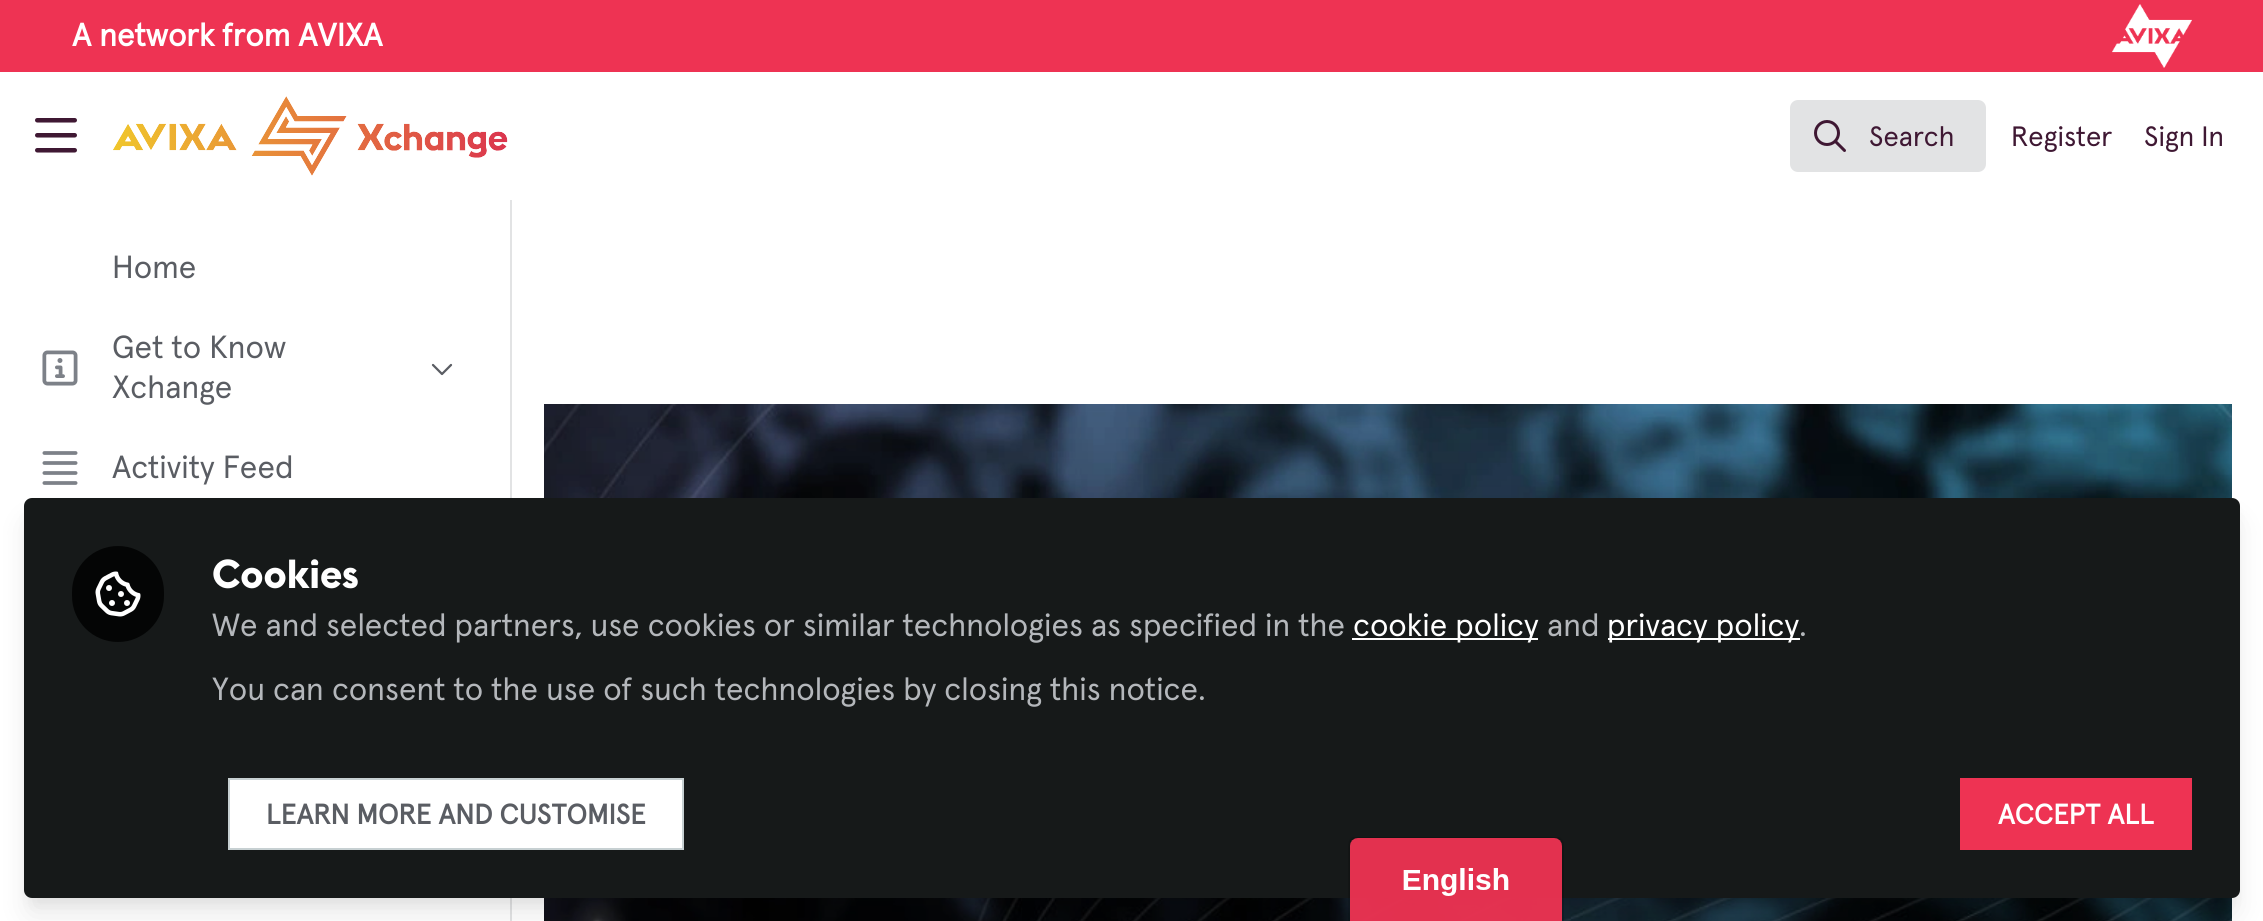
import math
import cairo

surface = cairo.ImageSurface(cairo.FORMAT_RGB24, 2263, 921)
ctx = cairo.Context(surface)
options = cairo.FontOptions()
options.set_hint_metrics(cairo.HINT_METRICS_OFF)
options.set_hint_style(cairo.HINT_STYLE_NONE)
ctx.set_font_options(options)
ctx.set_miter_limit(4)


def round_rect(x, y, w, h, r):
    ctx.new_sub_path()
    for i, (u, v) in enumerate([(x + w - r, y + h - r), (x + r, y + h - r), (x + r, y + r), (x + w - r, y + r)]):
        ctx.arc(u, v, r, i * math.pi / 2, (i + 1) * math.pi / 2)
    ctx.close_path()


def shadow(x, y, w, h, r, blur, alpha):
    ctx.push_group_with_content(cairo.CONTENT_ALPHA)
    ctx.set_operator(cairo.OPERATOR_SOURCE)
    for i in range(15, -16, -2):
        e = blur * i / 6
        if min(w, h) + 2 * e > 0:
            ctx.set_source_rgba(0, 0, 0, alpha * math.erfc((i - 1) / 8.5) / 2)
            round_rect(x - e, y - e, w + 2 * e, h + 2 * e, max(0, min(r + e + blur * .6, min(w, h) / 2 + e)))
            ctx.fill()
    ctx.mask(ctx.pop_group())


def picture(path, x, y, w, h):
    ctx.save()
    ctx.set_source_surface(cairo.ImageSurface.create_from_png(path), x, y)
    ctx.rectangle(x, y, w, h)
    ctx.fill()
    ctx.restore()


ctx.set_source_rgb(1, 1, 1)
ctx.paint()
ctx.set_source_rgb(0.933, 0.2, 0.325)
ctx.rectangle(0, 0, 2263, 72)
ctx.fill()
ctx.select_font_face("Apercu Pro", cairo.FONT_SLANT_NORMAL, cairo.FONT_WEIGHT_BOLD)
ctx.set_font_size(32)
ctx.set_source_rgb(1, 1, 1)
ctx.move_to(72, 46)
ctx.show_text("A network from AVIXA")
picture("img1.png", 2112, 4, 80, 64)
picture("img2.png", 35, 118, 42, 35)
picture("img3.png", 113, 96, 395, 80)
ctx.set_source_rgb(0.886, 0.89, 0.894)
round_rect(1790, 100, 196, 72, 8)
ctx.fill()
picture("img4.png", 1814, 120, 32, 32)
ctx.select_font_face("Apercu Pro")
ctx.set_font_size(28)
ctx.set_source_rgb(0.247, 0.094, 0.2)
ctx.move_to(1869, 146)
ctx.show_text("Search")
ctx.move_to(2011, 146)
ctx.show_text("Register")
ctx.move_to(2144, 146)
ctx.show_text("Sign In")
ctx.set_source_rgb(0.886, 0.89, 0.894)
ctx.rectangle(510, 200, 2, 721)
ctx.fill()
ctx.set_font_size(32)
ctx.set_source_rgb(0.353, 0.365, 0.388)
ctx.move_to(112, 278)
ctx.show_text("Home")
picture("img5.png", 42, 350, 36, 36)
ctx.move_to(112, 358)
ctx.show_text("Get to Know")
ctx.move_to(112, 398)
ctx.show_text("Xchange")
picture("img6.png", 431, 363, 22, 13)
picture("img7.png", 42, 451, 36, 34)
ctx.move_to(112, 478)
ctx.show_text("Activity Feed")
picture("img8.png", 544, 404, 1688, 517)
ctx.set_source_rgb(0, 0, 0)
shadow(28, 510, 2208, 392, 4, 6, 0.05)
shadow(30, 524, 2204, 388, 2, 15, 0.1)
ctx.set_source_rgb(0.086, 0.098, 0.098)
round_rect(24, 498, 2216, 400, 8)
ctx.fill()
ctx.set_source_rgb(0.016, 0.02, 0.02)
round_rect(72, 546, 92, 96, 46)
ctx.fill()
picture("img9.png", 95, 571, 46, 46)
ctx.select_font_face("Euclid", cairo.FONT_SLANT_NORMAL, cairo.FONT_WEIGHT_BOLD)
ctx.set_font_size(40)
ctx.set_source_rgb(1, 1, 1)
ctx.move_to(212, 588)
ctx.show_text("Cookies")
ctx.select_font_face("Apercu Pro")
ctx.set_font_size(32)
ctx.set_source_rgb(0.706, 0.718, 0.733)
ctx.move_to(212, 636)
ctx.show_text("We and selected partners, use cookies or similar technologies as specified in the")
ctx.set_source_rgb(1, 1, 1)
ctx.rectangle(1352, 638, 186, 2)
ctx.fill()
ctx.move_to(1353, 636)
ctx.show_text("cookie policy")
ctx.set_source_rgb(0.706, 0.718, 0.733)
ctx.move_to(1547, 636)
ctx.show_text("and")
ctx.set_source_rgb(1, 1, 1)
ctx.rectangle(1608, 638, 192, 2)
ctx.fill()
ctx.move_to(1607, 636)
ctx.show_text("privacy policy")
ctx.set_source_rgb(0.706, 0.718, 0.733)
ctx.move_to(1799, 636)
ctx.show_text(".")
ctx.move_to(212, 700)
ctx.show_text("You can consent to the use of such technologies by closing this notice.")
ctx.set_source_rgb(1, 1, 1)
ctx.rectangle(229, 779, 454, 70)
ctx.fill_preserve()
ctx.set_source_rgb(0.78, 0.816, 0.824)
ctx.stroke()
ctx.select_font_face("Apercu Pro", cairo.FONT_SLANT_NORMAL, cairo.FONT_WEIGHT_BOLD)
ctx.set_font_size(28)
ctx.set_source_rgb(0.353, 0.365, 0.388)
ctx.move_to(266, 824)
ctx.show_text("LEARN MORE AND CUSTOMISE")
ctx.set_source_rgb(0.933, 0.2, 0.325)
ctx.rectangle(1960, 778, 232, 72)
ctx.fill()
ctx.set_source_rgb(1, 1, 1)
ctx.move_to(1998, 824)
ctx.show_text("ACCEPT ALL")
picture("img10.png", 1348, 837, 216, 84)
surface.write_to_png("page.png")
